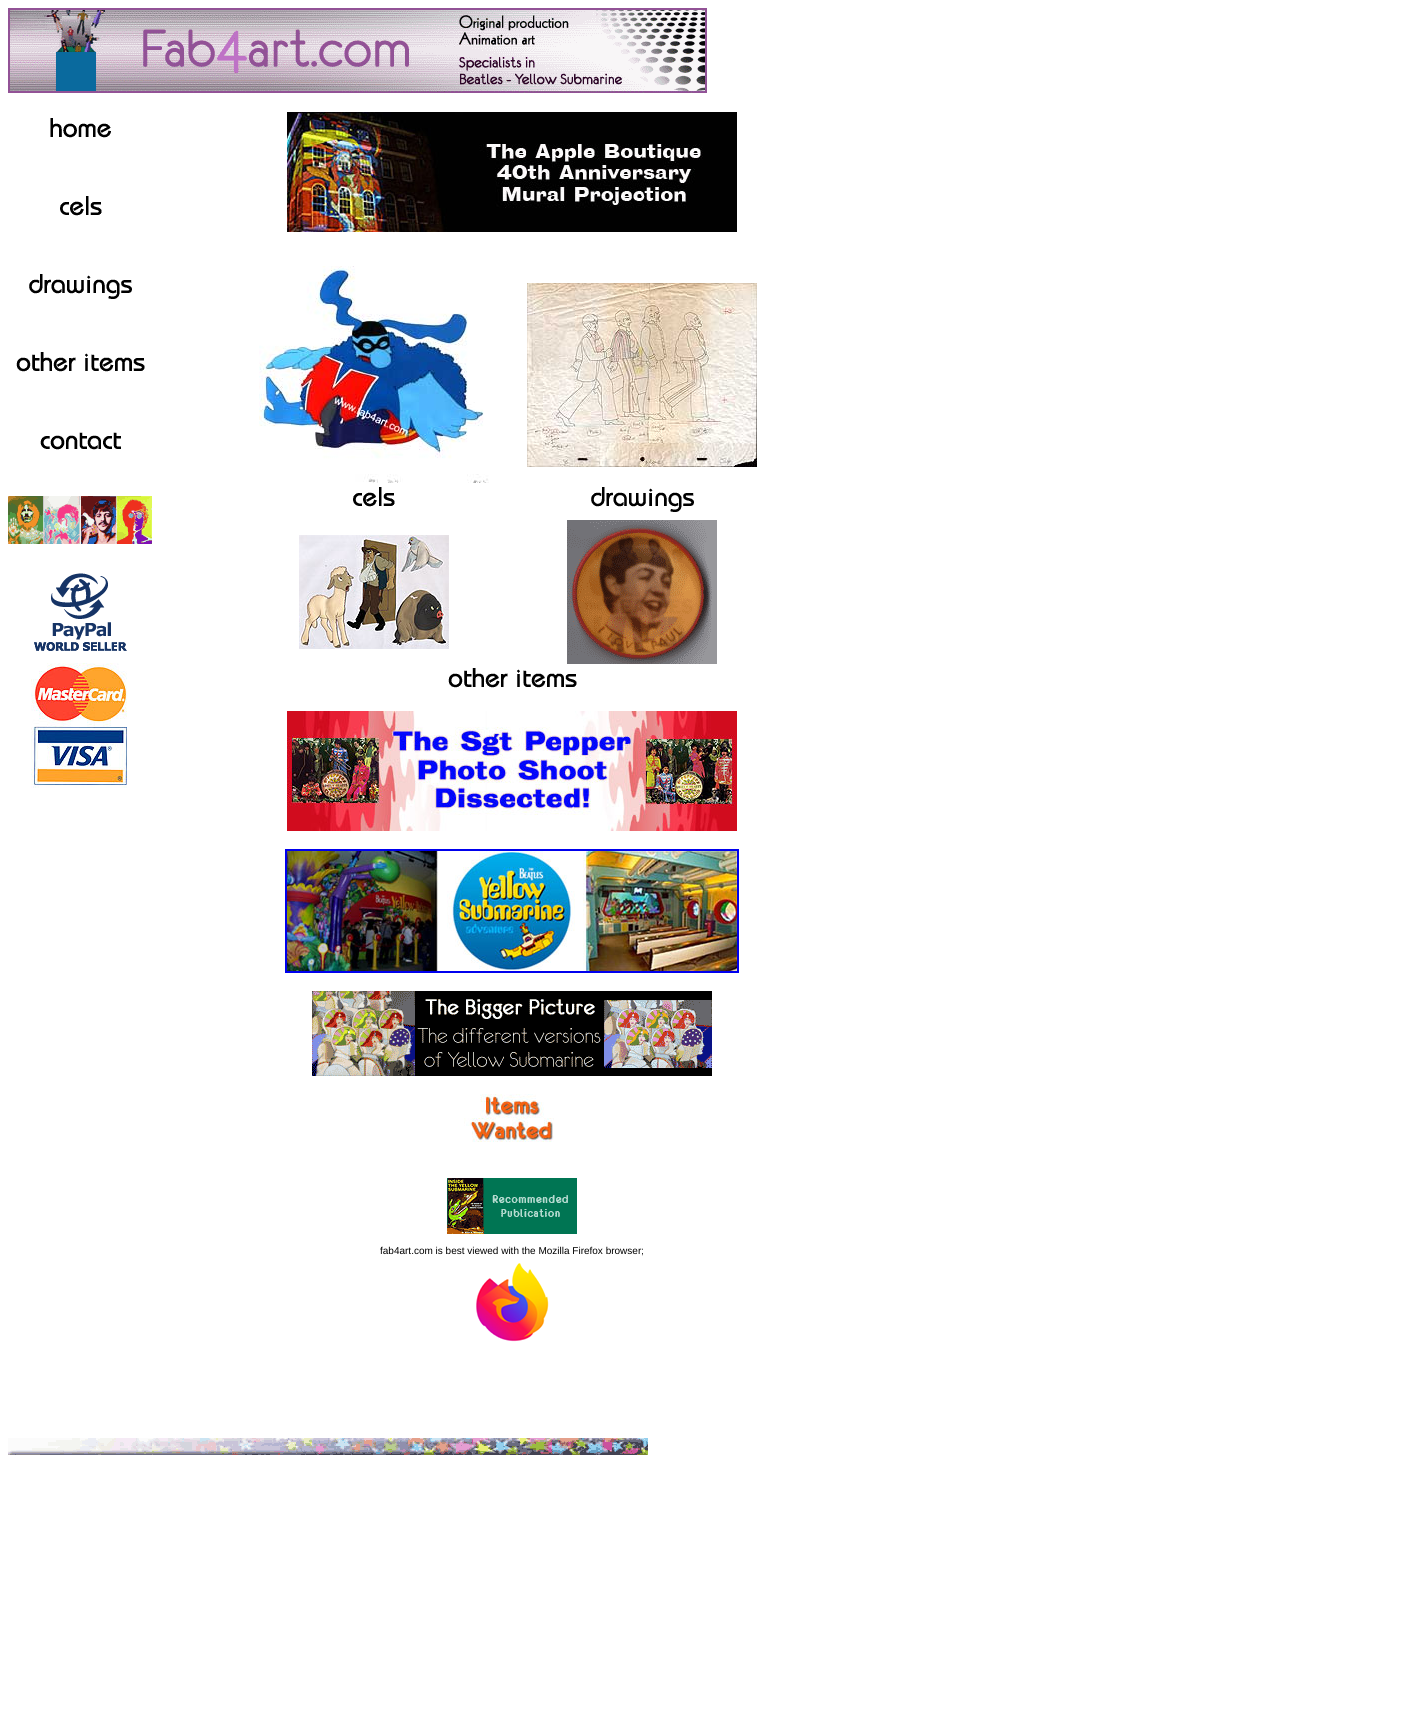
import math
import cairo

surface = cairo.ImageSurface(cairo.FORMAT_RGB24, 1419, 1729)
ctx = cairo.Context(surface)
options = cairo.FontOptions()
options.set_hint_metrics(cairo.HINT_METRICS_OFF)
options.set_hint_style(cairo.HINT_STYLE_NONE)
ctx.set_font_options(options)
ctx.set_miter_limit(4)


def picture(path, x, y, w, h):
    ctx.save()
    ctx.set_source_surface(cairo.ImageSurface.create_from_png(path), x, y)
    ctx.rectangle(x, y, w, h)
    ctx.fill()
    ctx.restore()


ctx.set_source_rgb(1, 1, 1)
ctx.paint()
picture("img1.png", 8, 8, 699, 85)
picture("img2.png", 50, 118, 61, 20)
picture("img3.png", 60, 196, 42, 20)
picture("img4.png", 29, 274, 103, 25)
picture("img5.png", 16, 352, 129, 20)
picture("img6.png", 40, 432, 81, 18)
picture("img7.png", 8, 496, 144, 48)
picture("img8.png", 34, 573, 93, 78)
picture("img9.png", 31, 663, 96, 125)
picture("img10.png", 287, 112, 450, 120)
picture("img11.png", 259, 266, 230, 217)
picture("img12.png", 527, 283, 230, 184)
picture("img3.png", 353, 487, 42, 20)
picture("img4.png", 591, 487, 103, 25)
picture("img13.png", 299, 535, 150, 114)
picture("img14.png", 567, 520, 150, 144)
picture("img5.png", 448, 668, 129, 20)
picture("img15.png", 287, 711, 450, 120)
ctx.rectangle(286, 850, 452, 122)
ctx.set_source_rgb(0, 0, 0.933)
ctx.stroke()
picture("img16.png", 287, 851, 450, 120)
picture("img17.png", 312, 991, 400, 85)
picture("img18.png", 464, 1094, 90, 48)
picture("img19.png", 447, 1178, 130, 56)
ctx.select_font_face("Liberation Sans")
ctx.set_font_size(10)
ctx.set_source_rgb(0, 0, 0)
ctx.move_to(380, 1254)
ctx.show_text("fab4art.com is best viewed with the Mozilla Firefox browser;")
picture("img20.png", 476, 1263, 73, 79)
picture("img21.png", 8, 1438, 640, 17)
surface.write_to_png("page.png")
